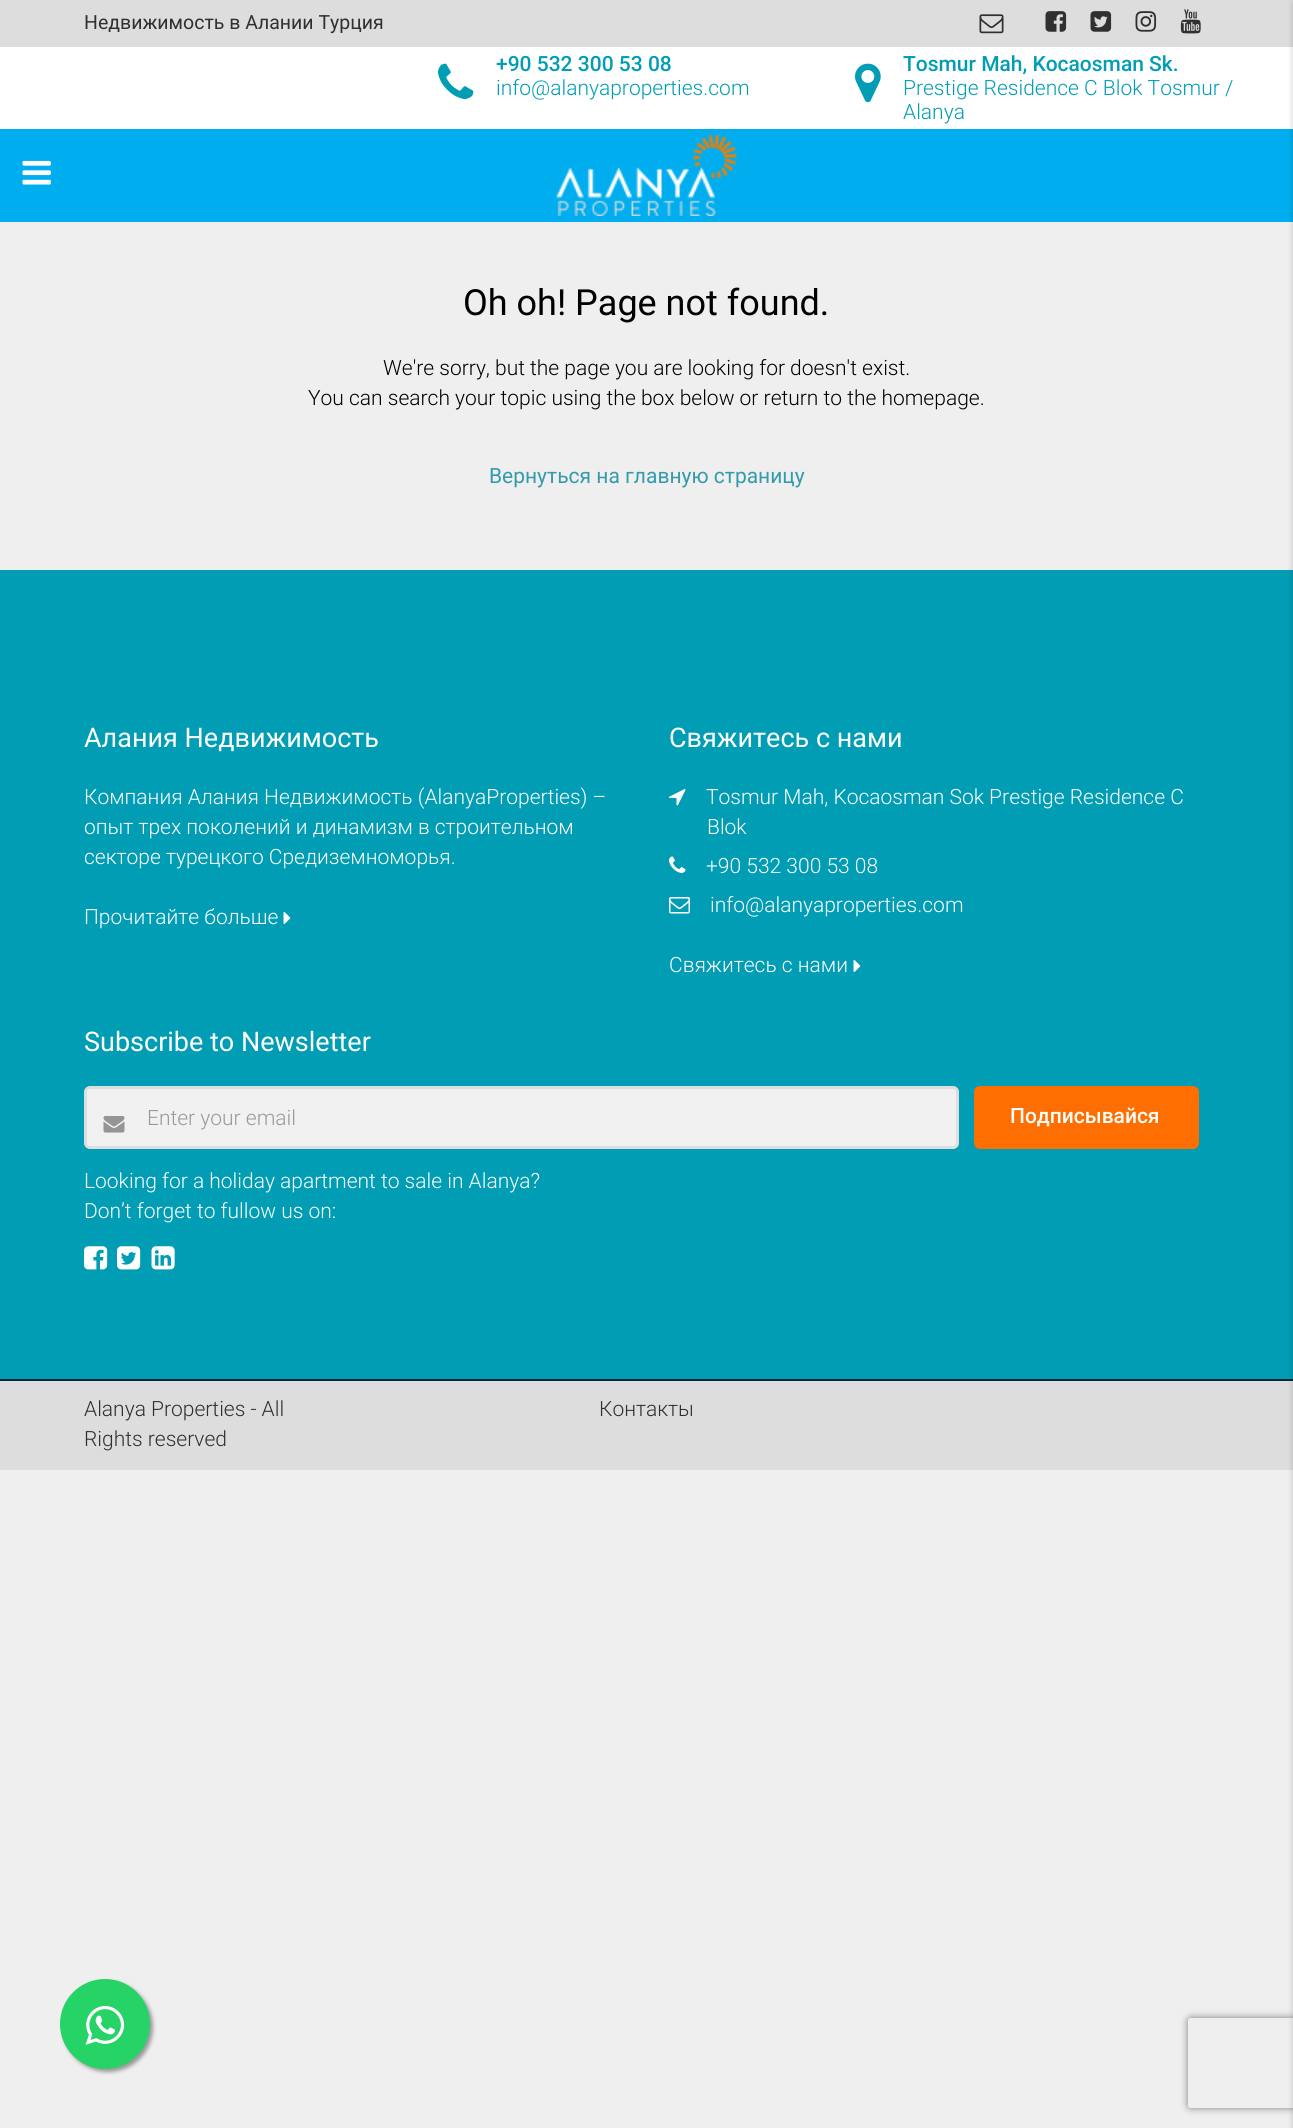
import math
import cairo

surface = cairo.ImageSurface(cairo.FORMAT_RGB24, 1293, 2128)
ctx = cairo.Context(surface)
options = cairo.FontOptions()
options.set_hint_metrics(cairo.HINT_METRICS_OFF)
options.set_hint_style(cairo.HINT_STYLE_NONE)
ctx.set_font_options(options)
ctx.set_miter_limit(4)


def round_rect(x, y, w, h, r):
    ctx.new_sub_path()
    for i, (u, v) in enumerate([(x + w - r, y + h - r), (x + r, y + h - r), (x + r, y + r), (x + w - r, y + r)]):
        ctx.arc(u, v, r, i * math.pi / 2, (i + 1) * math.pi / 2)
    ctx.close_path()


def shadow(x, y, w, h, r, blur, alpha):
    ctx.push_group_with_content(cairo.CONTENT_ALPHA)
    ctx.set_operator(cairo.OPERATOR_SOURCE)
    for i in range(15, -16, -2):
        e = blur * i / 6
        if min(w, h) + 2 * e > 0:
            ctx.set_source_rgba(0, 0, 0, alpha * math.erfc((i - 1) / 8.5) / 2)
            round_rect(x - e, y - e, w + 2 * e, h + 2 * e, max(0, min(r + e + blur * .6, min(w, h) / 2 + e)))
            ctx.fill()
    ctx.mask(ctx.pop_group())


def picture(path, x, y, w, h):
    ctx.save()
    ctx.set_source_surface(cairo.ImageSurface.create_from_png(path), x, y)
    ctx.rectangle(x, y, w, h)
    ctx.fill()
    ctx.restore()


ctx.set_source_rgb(0.937, 0.937, 0.937)
ctx.paint()
ctx.set_source_rgb(0.867, 0.867, 0.867)
ctx.rectangle(0, 0, 1293, 47)
ctx.fill()
ctx.select_font_face("Roboto")
ctx.set_font_size(19.5)
ctx.set_source_rgb(0.188, 0.188, 0.188)
ctx.move_to(84, 29)
ctx.show_text("Недвижимость в Алании Турция")
picture("img1.png", 979, 14, 25, 20)
picture("img2.png", 1045, 11, 22, 21)
picture("img3.png", 1090, 11, 22, 21)
picture("img4.png", 1135, 11, 22, 21)
picture("img5.png", 1180, 9, 21, 25)
ctx.set_source_rgb(1, 1, 1)
ctx.rectangle(0, 47, 1293, 82)
ctx.fill()
picture("img6.png", 438, 63, 36, 36)
ctx.select_font_face("Roboto Medium")
ctx.set_font_size(21)
ctx.set_source_rgb(0, 0.616, 0.706)
ctx.move_to(496, 71)
ctx.show_text("+90 532 300 53 08")
ctx.select_font_face("Roboto Light")
ctx.move_to(496, 95)
ctx.show_text("info@alanyaproperties.com")
picture("img7.png", 855, 63, 26, 40)
ctx.select_font_face("Roboto Medium")
ctx.move_to(903, 71)
ctx.show_text("Tosmur Mah, Kocaosman Sk.")
ctx.select_font_face("Roboto Light")
ctx.move_to(903, 95)
ctx.show_text("Prestige Residence C Blok Tosmur /")
ctx.move_to(903, 119)
ctx.show_text("Alanya")
ctx.set_source_rgb(0, 0.682, 0.937)
ctx.rectangle(0, 129, 1293, 93)
ctx.fill()
picture("img8.png", 22, 160, 29, 25)
picture("img9.png", 556, 135, 181, 81)
ctx.select_font_face("Roboto")
ctx.set_font_size(36)
ctx.set_source_rgb(0, 0, 0)
ctx.move_to(463, 315)
ctx.show_text("Oh oh! Page not found.")
ctx.select_font_face("Roboto Light")
ctx.set_font_size(21)
ctx.move_to(383, 375)
ctx.show_text("We're sorry, but the page you are looking for doesn't exist.")
ctx.move_to(308, 405)
ctx.show_text("You can search your topic using the box below or return to the homepage.")
ctx.select_font_face("Roboto")
ctx.set_source_rgb(0.204, 0.604, 0.678)
ctx.move_to(489, 483)
ctx.show_text("Вернуться на главную страницу")
ctx.set_source_rgb(0, 0.616, 0.706)
ctx.rectangle(0, 570, 1293, 809)
ctx.fill()
ctx.set_source_rgb(0.867, 0.867, 0.867)
ctx.rectangle(0, 1381, 1293, 89)
ctx.fill()
ctx.set_source_rgb(0, 0.141, 0.247)
ctx.rectangle(0, 1379, 1293, 2)
ctx.fill()
ctx.set_source_rgb(0, 0, 0)
shadow(1293, 3, 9, 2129, 0, 3, 0.2)
ctx.set_font_size(27)
ctx.set_source_rgb(1, 1, 1)
ctx.move_to(84, 747)
ctx.show_text("Алания Недвижимость")
ctx.select_font_face("Roboto Light")
ctx.set_font_size(21)
ctx.move_to(84, 804)
ctx.show_text("Компания Алания Недвижимость (AlanyaProperties) –")
ctx.move_to(84, 834)
ctx.show_text("опыт трех поколений и динамизм в строительном")
ctx.move_to(84, 864)
ctx.show_text("секторе турецкого Средиземноморья.")
ctx.move_to(84, 924)
ctx.show_text("Прочитайте больше")
picture("img10.png", 283, 912, 8, 12)
ctx.set_source_rgb(0.6, 0.6, 0.6)
shadow(63, 1982, 90, 90, 45, 2, 1)
ctx.set_source_rgb(0.145, 0.827, 0.4)
ctx.arc(105, 2024, 45, 0, 2 * math.pi)
ctx.fill()
picture("img11.png", 85, 2006, 40, 39)
ctx.select_font_face("Roboto")
ctx.set_font_size(27)
ctx.set_source_rgb(1, 1, 1)
ctx.move_to(669, 747)
ctx.show_text("Свяжитесь с нами")
picture("img12.png", 669, 789, 17, 17)
ctx.select_font_face("Roboto Light")
ctx.set_font_size(21)
ctx.move_to(706, 804)
ctx.show_text("Tosmur Mah, Kocaosman Sok Prestige Residence C")
ctx.move_to(707, 834)
ctx.show_text("Blok")
picture("img13.png", 669, 856, 17, 17)
ctx.move_to(706, 873)
ctx.show_text("+90 532 300 53 08")
picture("img14.png", 669, 897, 21, 17)
ctx.move_to(710, 912)
ctx.show_text("info@alanyaproperties.com")
ctx.move_to(669, 972)
ctx.show_text("Свяжитесь с нами")
picture("img10.png", 853, 960, 8, 12)
ctx.select_font_face("Roboto")
ctx.set_font_size(27)
ctx.move_to(84, 1051)
ctx.show_text("Subscribe to Newsletter")
ctx.set_source_rgb(0.945, 0.945, 0.945)
round_rect(84, 1086, 875, 63, 6)
ctx.fill()
round_rect(85.5, 1087.5, 872, 60, 4.5)
ctx.set_source_rgba(0.2, 0.2, 0.2, 0.1)
ctx.set_line_width(3)
ctx.stroke()
picture("img15.png", 103, 1116, 22, 17)
ctx.select_font_face("Roboto Light")
ctx.set_font_size(21)
ctx.set_source_rgb(0.6, 0.6, 0.6)
ctx.move_to(147, 1125)
ctx.show_text("Enter your email")
ctx.set_source_rgb(1, 0.431, 0)
round_rect(975, 1087, 223, 61, 5)
ctx.fill_preserve()
ctx.set_line_width(2)
ctx.stroke()
ctx.select_font_face("Roboto Medium")
ctx.set_source_rgb(1, 1, 1)
ctx.move_to(1010, 1123)
ctx.show_text("Подписывайся")
ctx.select_font_face("Roboto Light")
ctx.move_to(84, 1188)
ctx.show_text("Looking for a holiday apartment to sale in Alanya?")
ctx.move_to(84, 1218)
ctx.show_text("Don’t forget to fullow us on:")
picture("img16.png", 84, 1246, 24, 24)
picture("img17.png", 117, 1246, 24, 24)
picture("img18.png", 151, 1246, 24, 24)
ctx.set_source_rgb(0.188, 0.188, 0.188)
ctx.move_to(84, 1416)
ctx.show_text("Alanya Properties - All")
ctx.move_to(84, 1446)
ctx.show_text("Rights reserved")
ctx.move_to(599, 1416)
ctx.show_text("Контакты")
ctx.save()
ctx.set_fill_rule(cairo.FILL_RULE_EVEN_ODD)
ctx.new_path()
ctx.move_to(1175, 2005)
ctx.line_to(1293, 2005)
ctx.line_to(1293, 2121)
ctx.line_to(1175, 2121)
ctx.close_path()
ctx.move_to(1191, 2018)
ctx.line_to(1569, 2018)
ctx.curve_to(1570.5, 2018, 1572, 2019.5, 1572, 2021)
ctx.line_to(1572, 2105)
ctx.curve_to(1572, 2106.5, 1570.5, 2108, 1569, 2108)
ctx.line_to(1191, 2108)
ctx.curve_to(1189.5, 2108, 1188, 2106.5, 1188, 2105)
ctx.line_to(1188, 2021)
ctx.curve_to(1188, 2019.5, 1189.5, 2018, 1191, 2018)
ctx.close_path()
ctx.clip()
ctx.set_source_rgb(0.502, 0.502, 0.502)
shadow(1188, 2018, 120, 90, 3, 4, 1)
ctx.restore()
surface.write_to_png("page.png")
